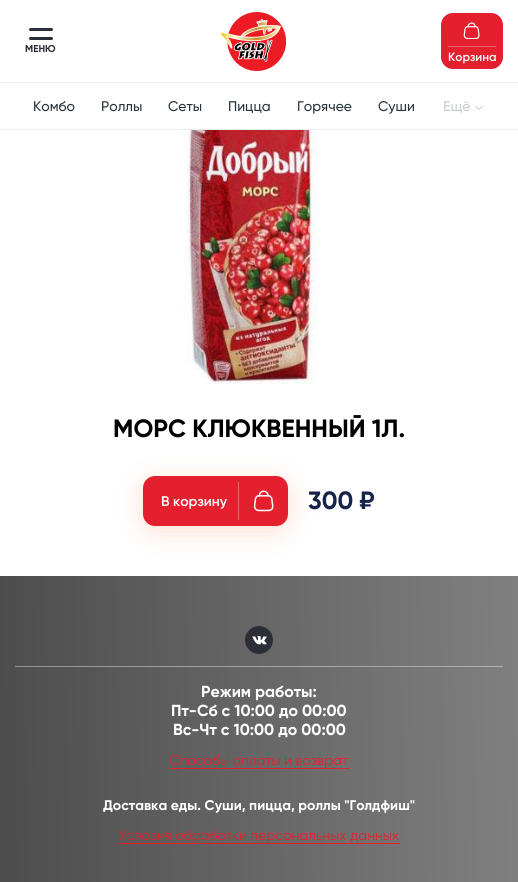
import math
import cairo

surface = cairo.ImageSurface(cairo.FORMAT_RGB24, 518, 882)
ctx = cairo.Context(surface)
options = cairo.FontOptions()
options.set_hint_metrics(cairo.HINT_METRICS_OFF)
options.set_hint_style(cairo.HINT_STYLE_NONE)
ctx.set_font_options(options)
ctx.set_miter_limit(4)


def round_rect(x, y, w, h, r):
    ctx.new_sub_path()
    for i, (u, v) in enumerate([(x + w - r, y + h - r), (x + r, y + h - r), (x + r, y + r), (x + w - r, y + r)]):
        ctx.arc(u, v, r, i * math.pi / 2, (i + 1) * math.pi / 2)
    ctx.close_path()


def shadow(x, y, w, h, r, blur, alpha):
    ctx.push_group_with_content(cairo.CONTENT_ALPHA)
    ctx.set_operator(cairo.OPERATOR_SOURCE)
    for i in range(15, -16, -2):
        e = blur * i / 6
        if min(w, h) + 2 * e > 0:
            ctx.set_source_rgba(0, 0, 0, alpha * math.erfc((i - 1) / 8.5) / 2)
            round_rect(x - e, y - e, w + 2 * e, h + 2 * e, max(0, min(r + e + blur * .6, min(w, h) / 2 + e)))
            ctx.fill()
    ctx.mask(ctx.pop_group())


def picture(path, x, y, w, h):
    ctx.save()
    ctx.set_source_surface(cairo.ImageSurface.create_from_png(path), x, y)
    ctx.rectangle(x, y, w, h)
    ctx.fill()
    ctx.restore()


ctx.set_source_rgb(1, 1, 1)
ctx.paint()
ctx.set_source_rgb(0.906, 0.933, 0.945)
ctx.rectangle(0, 129, 518, 1)
ctx.fill()
ctx.set_source_rgb(0.169, 0.176, 0.216)
round_rect(29, 28, 24, 3, 1.5)
ctx.fill()
round_rect(29, 37, 24, 3, 1.5)
ctx.fill()
ctx.select_font_face("Gilroy", cairo.FONT_SLANT_NORMAL, cairo.FONT_WEIGHT_BOLD)
ctx.set_font_size(10)
ctx.move_to(25, 52)
ctx.show_text("МЕНЮ")
picture("img1.png", 221, 12, 65, 59)
ctx.set_source_rgb(0.894, 0.125, 0.18)
round_rect(441, 13, 62, 56, 12)
ctx.fill()
picture("img2.png", 463, 22, 17, 17)
ctx.set_source_rgb(0.925, 0.388, 0.427)
ctx.rectangle(448, 46, 48, 1)
ctx.fill()
ctx.select_font_face("Gilroy SemiBold")
ctx.set_font_size(12)
ctx.set_source_rgb(1, 1, 1)
ctx.move_to(448, 61)
ctx.show_text("Корзина")
ctx.set_source_rgb(0.906, 0.933, 0.945)
ctx.rectangle(0, 82, 518, 1)
ctx.fill()
ctx.select_font_face("Gilroy Medium")
ctx.set_font_size(14)
ctx.set_source_rgb(0.157, 0.212, 0.239)
ctx.move_to(33, 111)
ctx.show_text("Комбо")
ctx.move_to(101, 111)
ctx.show_text("Роллы")
ctx.move_to(168, 111)
ctx.show_text("Сеты")
ctx.move_to(228, 111)
ctx.show_text("Пицца")
ctx.move_to(297, 111)
ctx.show_text("Горячее")
ctx.move_to(378, 111)
ctx.show_text("Суши")
ctx.set_source_rgb(0.776, 0.808, 0.82)
ctx.move_to(443, 111)
ctx.show_text("Ещё")
picture("img3.png", 475, 106, 8, 4)
picture("img4.png", 180, 130, 138, 254)
ctx.select_font_face("Gilroy", cairo.FONT_SLANT_NORMAL, cairo.FONT_WEIGHT_BOLD)
ctx.set_font_size(25)
ctx.set_source_rgb(0, 0, 0)
ctx.move_to(113, 437)
ctx.show_text("МОРС КЛЮКВЕННЫЙ 1Л.")
ctx.set_source_rgb(1, 0.361, 0.086)
shadow(143, 481, 145, 50, 12, 12.5, 0.2)
ctx.set_source_rgb(0.894, 0.125, 0.18)
round_rect(143, 476, 145, 50, 12)
ctx.fill()
ctx.select_font_face("Gilroy SemiBold")
ctx.set_font_size(14)
ctx.set_source_rgb(1, 1, 1)
ctx.move_to(161, 506)
ctx.show_text("В корзину")
picture("img5.png", 253, 490, 21, 22)
ctx.set_source_rgb(0.925, 0.388, 0.427)
ctx.rectangle(238, 482, 1, 38)
ctx.fill()
ctx.select_font_face("Gilroy", cairo.FONT_SLANT_NORMAL, cairo.FONT_WEIGHT_BOLD)
ctx.set_font_size(25)
ctx.set_source_rgb(0.086, 0.141, 0.29)
ctx.move_to(308, 509)
ctx.show_text("300 ₽")
gradient = cairo.LinearGradient(-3.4, 761, 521, 751)
gradient.add_color_stop_rgba(0.01, 0.302, 0.302, 0.302, 1)
gradient.add_color_stop_rgba(1, 0.502, 0.502, 0.502, 1)
ctx.set_source(gradient)
ctx.rectangle(0, 576, 518, 306)
ctx.fill()
gradient = cairo.LinearGradient(-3.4, 761, 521, 751)
gradient.add_color_stop_rgba(0.01, 0.58, 0.58, 0.58, 1)
gradient.add_color_stop_rgba(1, 0.702, 0.702, 0.702, 1)
ctx.set_source(gradient)
ctx.rectangle(15, 666, 488, 1)
ctx.fill()
ctx.set_source_rgb(0.169, 0.176, 0.216)
ctx.arc(259, 640, 14, 0, 2 * math.pi)
ctx.fill()
picture("img6.png", 252, 636, 15, 9)
ctx.set_font_size(16)
ctx.set_source_rgb(1, 1, 1)
ctx.move_to(201, 697)
ctx.show_text("Режим работы:")
ctx.move_to(171, 716)
ctx.show_text("Пт-Сб с 10:00 до 00:00")
ctx.move_to(173, 735)
ctx.show_text("Вс-Чт с 10:00 до 00:00")
ctx.select_font_face("Gilroy")
ctx.set_font_size(14)
ctx.set_source_rgb(0.894, 0.125, 0.18)
ctx.move_to(169, 765)
ctx.show_text("Способы оплаты и возврат")
ctx.rectangle(169, 768, 180, 1)
ctx.fill()
ctx.select_font_face("Gilroy", cairo.FONT_SLANT_NORMAL, cairo.FONT_WEIGHT_BOLD)
ctx.set_source_rgb(1, 1, 1)
ctx.move_to(103, 810)
ctx.show_text("Доставка еды. Суши, пицца, роллы \"Голдфиш\"")
ctx.select_font_face("Gilroy")
ctx.set_source_rgb(0.894, 0.125, 0.18)
ctx.move_to(118, 840)
ctx.show_text("Условия обработки персональных данных")
ctx.rectangle(118, 843, 282, 1)
ctx.fill()
surface.write_to_png("page.png")
